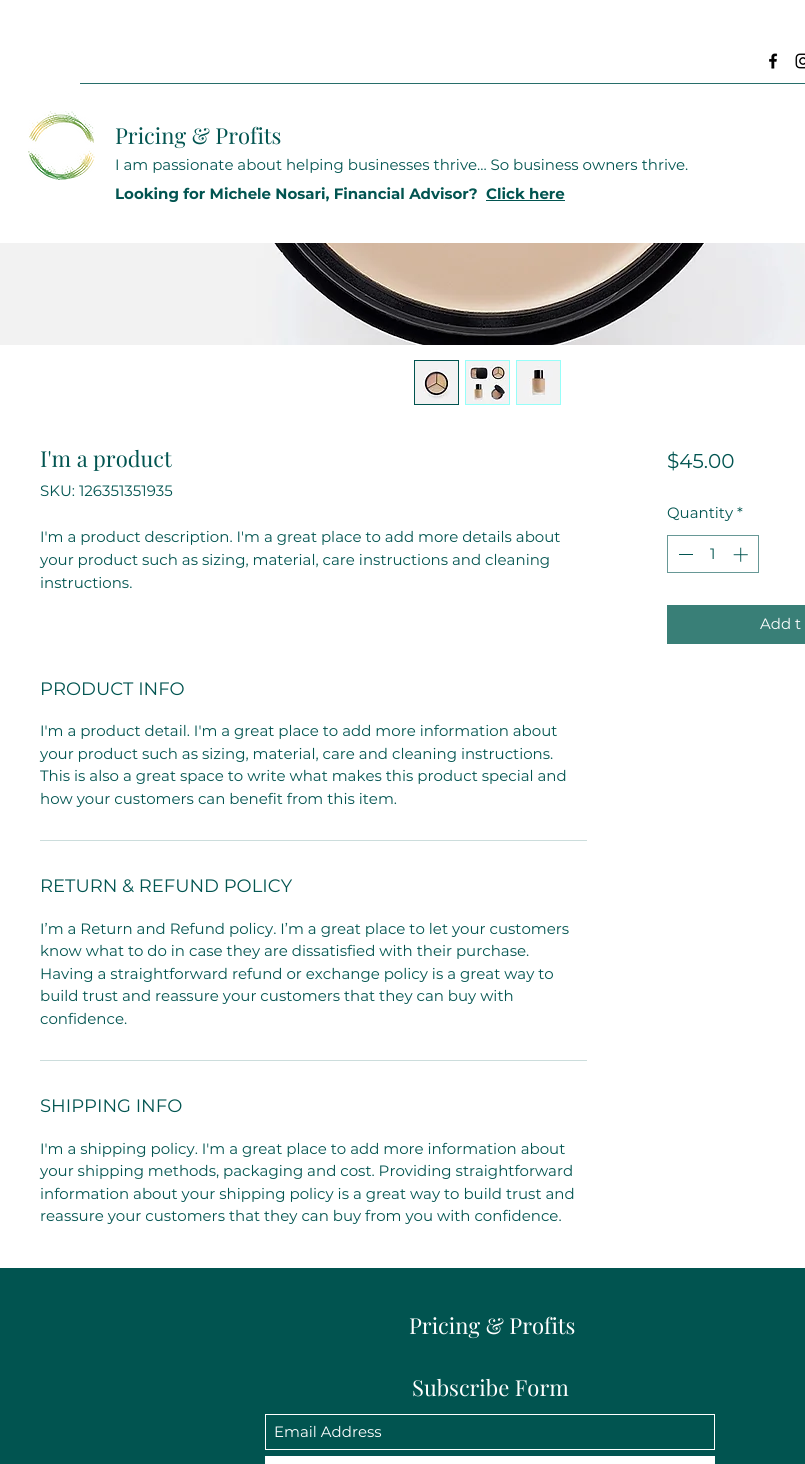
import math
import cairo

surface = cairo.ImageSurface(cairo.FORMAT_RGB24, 805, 1464)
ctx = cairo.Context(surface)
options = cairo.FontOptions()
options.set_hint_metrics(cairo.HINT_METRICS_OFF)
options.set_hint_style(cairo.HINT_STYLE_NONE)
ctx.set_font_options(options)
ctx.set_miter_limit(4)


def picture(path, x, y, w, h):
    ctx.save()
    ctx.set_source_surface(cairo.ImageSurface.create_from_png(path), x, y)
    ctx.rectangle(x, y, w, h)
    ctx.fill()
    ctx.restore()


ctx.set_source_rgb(1, 1, 1)
ctx.paint()
picture("img1.png", 769, 53, 9, 16)
picture("img2.png", 795, 53, 10, 16)
ctx.set_source_rgb(0.153, 0.431, 0.416)
ctx.rectangle(80, 83, 725, 1)
ctx.fill()
picture("img3.png", 28, 111, 67, 69)
ctx.select_font_face("Playfair Display")
ctx.set_font_size(22)
ctx.set_source_rgb(0.004, 0.329, 0.314)
ctx.move_to(115, 144)
ctx.show_text("Pricing & Profits")
ctx.select_font_face("Montserrat")
ctx.set_font_size(15)
ctx.move_to(115, 170)
ctx.show_text("I am passionate about helping businesses thrive... So business owners thrive.")
ctx.select_font_face("Montserrat", cairo.FONT_SLANT_NORMAL, cairo.FONT_WEIGHT_BOLD)
ctx.move_to(115, 199)
ctx.show_text("Looking for Michele Nosari, Financial Advisor?")
ctx.move_to(486, 199)
ctx.show_text("Click here")
ctx.rectangle(486, 200, 79, 1)
ctx.fill()
picture("img4.png", 0, 243, 805, 102)
ctx.rectangle(414.5, 360.5, 44, 44)
ctx.set_line_width(1)
ctx.stroke()
picture("img5.png", 415, 361, 43, 43)
ctx.rectangle(465.5, 360.5, 44, 44)
ctx.set_source_rgb(0.588, 0.996, 0.976)
ctx.stroke()
picture("img6.png", 466, 361, 43, 43)
ctx.rectangle(516.5, 360.5, 44, 44)
ctx.stroke()
picture("img7.png", 517, 361, 43, 43)
ctx.select_font_face("Playfair Display")
ctx.set_font_size(22)
ctx.set_source_rgb(0.004, 0.329, 0.314)
ctx.move_to(40, 467)
ctx.show_text("I'm a product")
ctx.select_font_face("Montserrat")
ctx.set_font_size(15)
ctx.move_to(40, 496)
ctx.show_text("SKU: 126351351935")
ctx.move_to(40, 542)
ctx.show_text("I'm a product description. I'm a great place to add more details about")
ctx.move_to(40, 565)
ctx.show_text("your product such as sizing, material, care instructions and cleaning")
ctx.move_to(40, 588)
ctx.show_text("instructions.")
ctx.set_source_rgb(0.8, 0.867, 0.863)
ctx.rectangle(40, 840, 547, 1)
ctx.fill()
ctx.set_font_size(18)
ctx.set_source_rgb(0.004, 0.329, 0.314)
ctx.move_to(40, 695)
ctx.show_text("PRODUCT INFO")
ctx.set_font_size(15)
ctx.move_to(40, 736)
ctx.show_text("I'm a product detail. I'm a great place to add more information about")
ctx.move_to(40, 759)
ctx.show_text("your product such as sizing, material, care and cleaning instructions.")
ctx.move_to(40, 781)
ctx.show_text("This is also a great space to write what makes this product special and")
ctx.move_to(40, 804)
ctx.show_text("how your customers can benefit from this item.")
ctx.set_source_rgb(0.8, 0.867, 0.863)
ctx.rectangle(40, 1060, 547, 1)
ctx.fill()
ctx.set_font_size(18)
ctx.set_source_rgb(0.004, 0.329, 0.314)
ctx.move_to(40, 892)
ctx.show_text("RETURN & REFUND POLICY")
ctx.set_font_size(15)
ctx.move_to(40, 934)
ctx.show_text("I’m a Return and Refund policy. I’m a great place to let your customers")
ctx.move_to(40, 956)
ctx.show_text("know what to do in case they are dissatisfied with their purchase.")
ctx.move_to(40, 979)
ctx.show_text("Having a straightforward refund or exchange policy is a great way to")
ctx.move_to(40, 1001)
ctx.show_text("build trust and reassure your customers that they can buy with")
ctx.move_to(40, 1024)
ctx.show_text("confidence.")
ctx.set_font_size(18)
ctx.move_to(40, 1112)
ctx.show_text("SHIPPING INFO")
ctx.set_font_size(15)
ctx.move_to(40, 1154)
ctx.show_text("I'm a shipping policy. I'm a great place to add more information about")
ctx.move_to(40, 1176)
ctx.show_text("your shipping methods, packaging and cost. Providing straightforward")
ctx.move_to(40, 1199)
ctx.show_text("information about your shipping policy is a great way to build trust and")
ctx.move_to(40, 1221)
ctx.show_text("reassure your customers that they can buy from you with confidence.")
ctx.set_font_size(20)
ctx.move_to(667, 468)
ctx.show_text("$45.00")
ctx.set_font_size(15)
ctx.move_to(667, 518)
ctx.show_text("Quantity *")
ctx.rectangle(667.5, 535.5, 91, 37)
ctx.set_source_rgb(0.404, 0.596, 0.588)
ctx.stroke()
ctx.set_source_rgb(0.004, 0.329, 0.314)
ctx.rectangle(679, 554, 14, 1)
ctx.fill()
ctx.move_to(710, 559)
ctx.show_text("1")
picture("img8.png", 733, 547, 15, 15)
ctx.set_source_rgb(0.224, 0.498, 0.467)
ctx.rectangle(667, 605, 138, 39)
ctx.fill()
ctx.set_source_rgb(1, 1, 1)
ctx.move_to(760, 629)
ctx.show_text("Add t")
ctx.set_source_rgb(0.004, 0.329, 0.314)
ctx.rectangle(0, 1268, 805, 196)
ctx.fill()
ctx.select_font_face("Playfair Display")
ctx.set_font_size(22)
ctx.set_source_rgb(1, 1, 1)
ctx.move_to(409, 1334)
ctx.show_text("Pricing & Profits")
ctx.move_to(412, 1396)
ctx.show_text("Subscribe Form")
ctx.rectangle(265.5, 1414.5, 449, 35)
ctx.stroke()
ctx.select_font_face("Montserrat")
ctx.set_font_size(15)
ctx.move_to(274, 1437)
ctx.show_text("Email Address")
ctx.rectangle(265, 1456, 450, 8)
ctx.fill()
surface.write_to_png("page.png")
